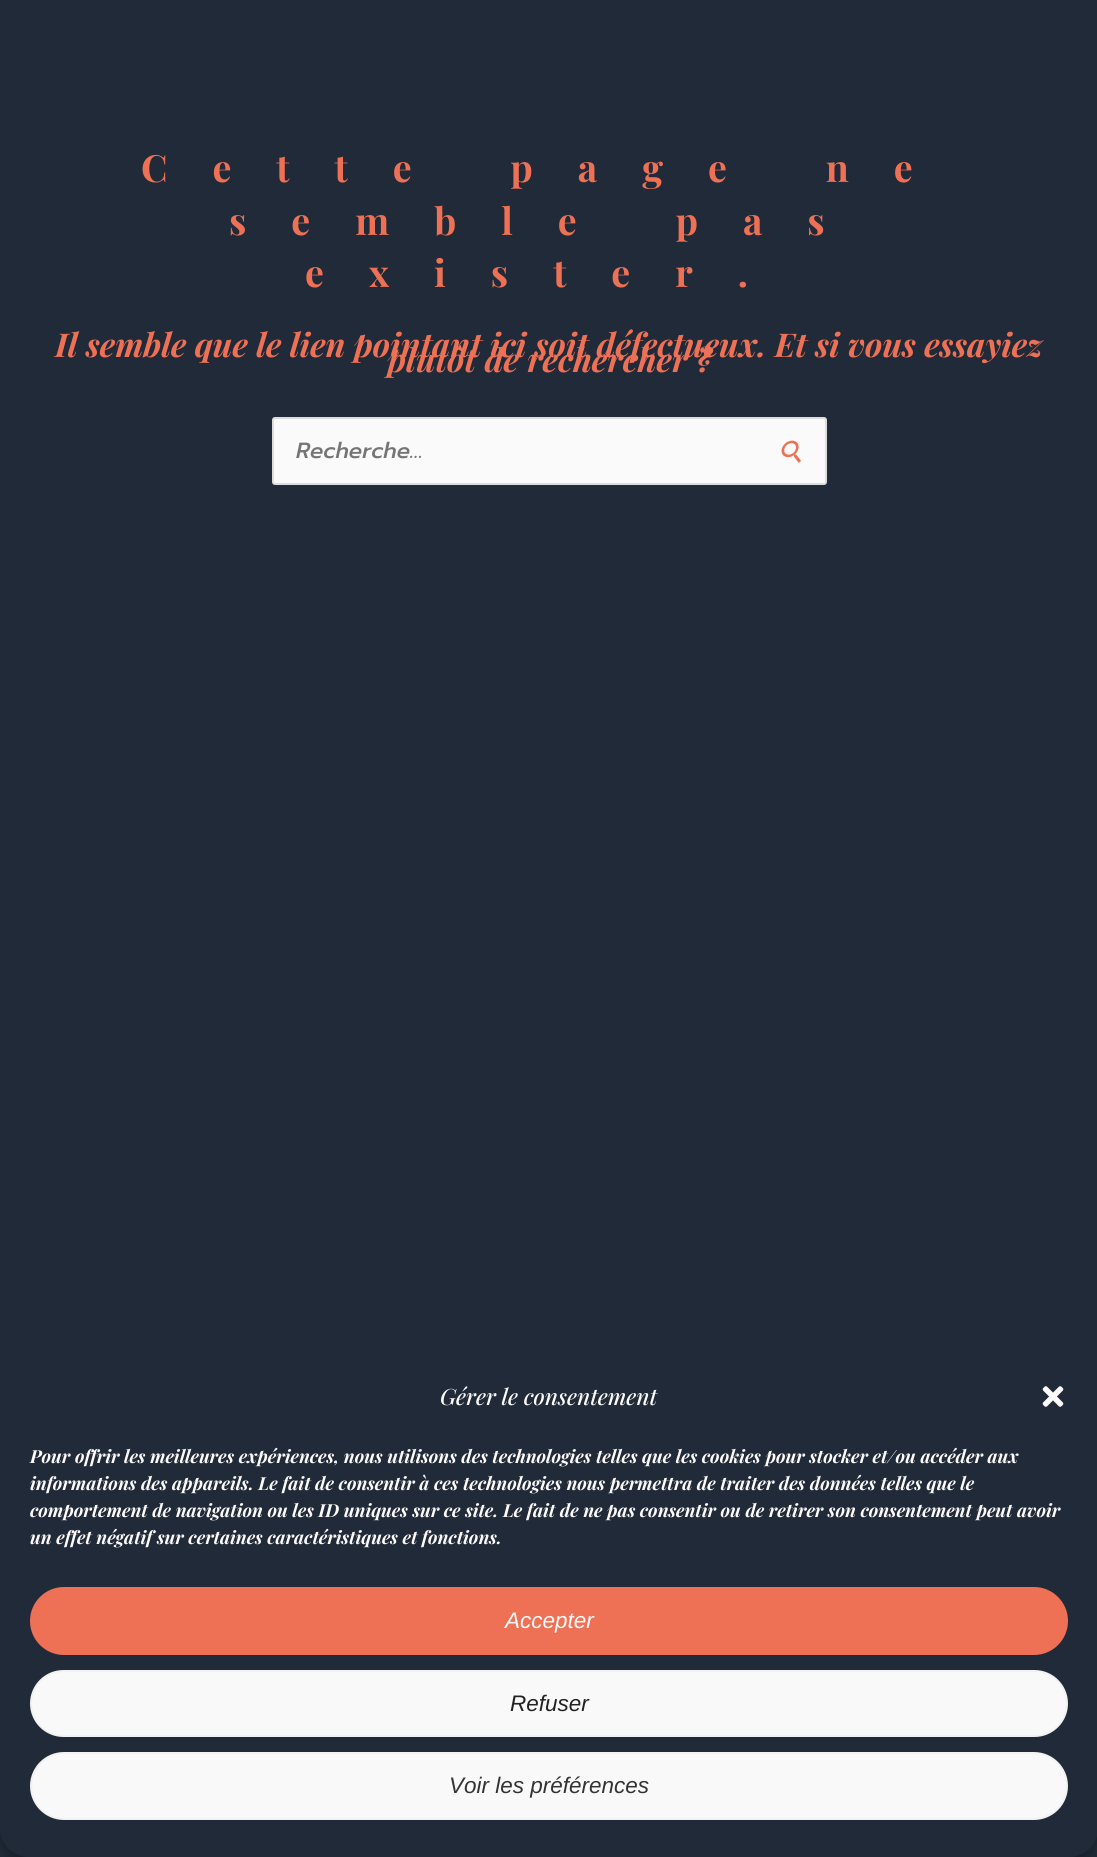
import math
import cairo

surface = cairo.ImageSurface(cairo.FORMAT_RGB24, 1097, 1857)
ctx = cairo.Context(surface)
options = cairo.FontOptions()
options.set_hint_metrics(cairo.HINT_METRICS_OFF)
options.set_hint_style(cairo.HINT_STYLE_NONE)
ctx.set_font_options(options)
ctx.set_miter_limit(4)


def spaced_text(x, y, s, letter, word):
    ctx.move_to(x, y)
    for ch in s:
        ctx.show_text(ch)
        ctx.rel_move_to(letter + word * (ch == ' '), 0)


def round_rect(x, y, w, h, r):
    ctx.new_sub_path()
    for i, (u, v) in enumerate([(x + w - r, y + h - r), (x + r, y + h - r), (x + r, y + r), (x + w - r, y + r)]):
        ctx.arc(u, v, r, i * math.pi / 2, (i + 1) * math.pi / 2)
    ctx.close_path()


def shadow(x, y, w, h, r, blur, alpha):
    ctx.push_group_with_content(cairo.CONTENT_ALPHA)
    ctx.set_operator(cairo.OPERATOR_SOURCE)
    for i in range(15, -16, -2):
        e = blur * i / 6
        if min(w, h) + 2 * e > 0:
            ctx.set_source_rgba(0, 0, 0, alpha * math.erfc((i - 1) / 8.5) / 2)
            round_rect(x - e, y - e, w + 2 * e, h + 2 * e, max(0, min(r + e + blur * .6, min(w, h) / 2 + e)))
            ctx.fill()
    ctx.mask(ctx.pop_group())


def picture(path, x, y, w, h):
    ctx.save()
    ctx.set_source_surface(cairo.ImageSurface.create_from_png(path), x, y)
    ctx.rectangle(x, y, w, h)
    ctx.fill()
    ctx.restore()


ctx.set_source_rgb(0.129, 0.165, 0.22)
ctx.paint()
ctx.select_font_face("Playfair Display", cairo.FONT_SLANT_NORMAL, cairo.FONT_WEIGHT_BOLD)
ctx.set_font_size(37.5)
ctx.set_source_rgb(0.933, 0.443, 0.333)
spaced_text(141, 182, "Cette page ne", 45, 0)
spaced_text(229, 235, "semble pas", 45, 0)
spaced_text(305, 287, "exister.", 45, 0)
ctx.select_font_face("Playfair Display", cairo.FONT_SLANT_ITALIC, cairo.FONT_WEIGHT_BOLD)
ctx.set_font_size(32.8)
ctx.move_to(55, 357)
ctx.show_text("Il semble que le lien pointant ici soit défectueux. Et si vous essayiez")
ctx.move_to(387, 372)
ctx.show_text("plutôt de rechercher ?")
ctx.set_source_rgb(0.98, 0.98, 0.98)
round_rect(273, 418, 553, 66, 2)
ctx.fill_preserve()
ctx.set_source_rgb(0.867, 0.867, 0.867)
ctx.stroke()
ctx.select_font_face("Prompt Medium", cairo.FONT_SLANT_ITALIC)
ctx.set_font_size(22)
ctx.set_source_rgb(0.459, 0.459, 0.459)
ctx.move_to(296, 458)
ctx.show_text("Recherche…")
picture("img1.png", 781, 440, 20, 23)
ctx.set_source_rgb(0, 0, 0)
shadow(0, 1368, 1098, 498, 29, 4.5, 0.23)
ctx.set_source_rgb(0.129, 0.165, 0.22)
round_rect(0, 1359, 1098, 498, 29)
ctx.fill()
ctx.select_font_face("Playfair Display Medium", cairo.FONT_SLANT_ITALIC)
ctx.set_font_size(22.5)
ctx.set_source_rgb(0.992, 0.98, 0.98)
ctx.move_to(440, 1405)
ctx.show_text("Gérer le consentement")
picture("img2.png", 1042, 1386, 22, 21)
ctx.select_font_face("Playfair Display", cairo.FONT_SLANT_ITALIC, cairo.FONT_WEIGHT_BOLD)
ctx.set_font_size(18)
ctx.move_to(30, 1463)
ctx.show_text("Pour offrir les meilleures expériences, nous utilisons des technologies telles que les cookies pour stocker et/ou accéder aux")
ctx.move_to(30, 1490)
ctx.show_text("informations des appareils. Le fait de consentir à ces technologies nous permettra de traiter des données telles que le")
ctx.move_to(30, 1517)
ctx.show_text("comportement de navigation ou les ID uniques sur ce site. Le fait de ne pas consentir ou de retirer son consentement peut avoir")
ctx.move_to(30, 1544)
ctx.show_text("un effet négatif sur certaines caractéristiques et fonctions.")
ctx.set_source_rgb(0.933, 0.443, 0.333)
round_rect(31, 1588, 1036, 66, 33)
ctx.fill_preserve()
ctx.stroke()
ctx.select_font_face("Liberation Sans", cairo.FONT_SLANT_ITALIC)
ctx.set_font_size(22.5)
ctx.set_source_rgb(0.992, 0.98, 0.98)
ctx.move_to(505, 1628)
ctx.show_text("Accepter")
ctx.set_source_rgb(0.976, 0.976, 0.976)
round_rect(31, 1671, 1036, 65, 32.5)
ctx.fill_preserve()
ctx.set_source_rgb(0.949, 0.949, 0.949)
ctx.stroke()
ctx.set_source_rgb(0.133, 0.133, 0.133)
ctx.move_to(510, 1711)
ctx.show_text("Refuser")
ctx.set_source_rgb(0.976, 0.976, 0.976)
round_rect(31, 1753, 1036, 66, 33)
ctx.fill_preserve()
ctx.set_source_rgb(0.949, 0.949, 0.949)
ctx.stroke()
ctx.set_source_rgb(0.2, 0.2, 0.2)
ctx.move_to(449, 1793)
ctx.show_text("Voir les préférences")
surface.write_to_png("page.png")
